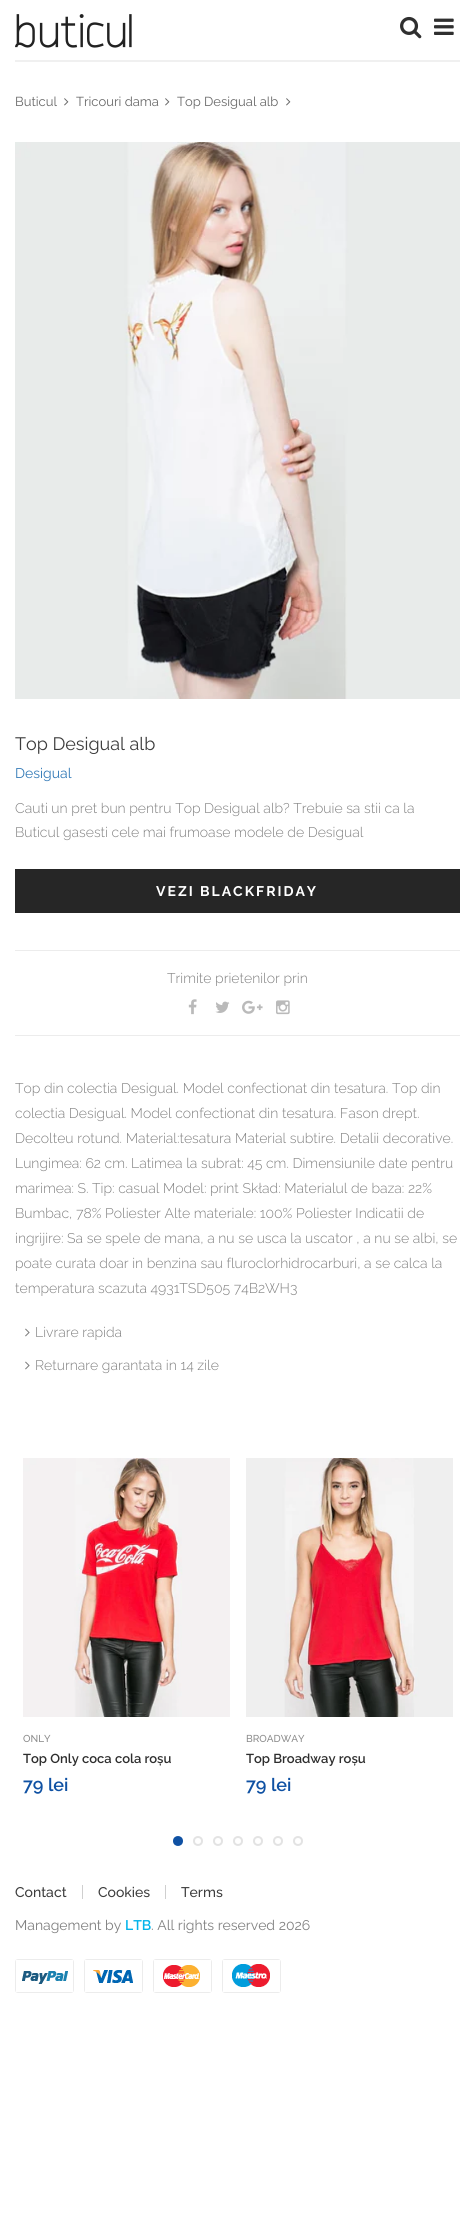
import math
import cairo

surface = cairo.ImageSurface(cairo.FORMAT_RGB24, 475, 2213)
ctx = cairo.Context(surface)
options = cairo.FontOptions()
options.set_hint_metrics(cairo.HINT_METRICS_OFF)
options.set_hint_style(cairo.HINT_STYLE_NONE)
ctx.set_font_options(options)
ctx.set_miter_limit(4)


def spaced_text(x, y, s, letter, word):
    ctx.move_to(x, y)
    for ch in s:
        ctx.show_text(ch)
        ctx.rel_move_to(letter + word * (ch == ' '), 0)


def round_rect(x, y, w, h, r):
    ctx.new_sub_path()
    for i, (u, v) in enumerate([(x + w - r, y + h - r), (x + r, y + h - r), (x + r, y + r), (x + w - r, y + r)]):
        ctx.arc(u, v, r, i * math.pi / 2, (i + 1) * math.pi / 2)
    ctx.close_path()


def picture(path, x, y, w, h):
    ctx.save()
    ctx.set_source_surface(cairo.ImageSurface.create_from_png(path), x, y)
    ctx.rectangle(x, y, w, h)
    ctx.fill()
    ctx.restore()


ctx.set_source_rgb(1, 1, 1)
ctx.paint()
ctx.set_source_rgb(0.941, 0.941, 0.941)
ctx.rectangle(15, 60, 445, 2)
ctx.fill()
picture("img1.png", 15, 14, 117, 34)
picture("img2.png", 400, 16, 22, 23)
picture("img3.png", 434, 18, 20, 17)
ctx.select_font_face("Raleway")
ctx.set_font_size(13)
ctx.set_source_rgb(0.412, 0.412, 0.412)
ctx.move_to(15, 106)
ctx.show_text("Buticul")
picture("img4.png", 64, 98, 5, 8)
ctx.move_to(76, 106)
ctx.show_text("Tricouri dama")
picture("img4.png", 165, 98, 5, 8)
ctx.move_to(177, 106)
ctx.show_text("Top Desigual alb")
picture("img4.png", 286, 98, 5, 8)
picture("img5.png", 15, 142, 445, 557)
ctx.set_font_size(18)
ctx.set_source_rgb(0.239, 0.239, 0.239)
ctx.move_to(15, 750)
ctx.show_text("Top Desigual alb")
ctx.set_font_size(14)
ctx.set_source_rgb(0.2, 0.478, 0.718)
ctx.move_to(15, 778)
ctx.show_text("Desigual")
ctx.select_font_face("Raleway Light")
ctx.set_source_rgb(0.502, 0.502, 0.502)
ctx.move_to(15, 813)
ctx.show_text("Cauti un pret bun pentru Top Desigual alb? Trebuie sa stii ca la")
ctx.move_to(15, 837)
ctx.show_text("Buticul gasesti cele mai frumoase modele de Desigual")
ctx.set_source_rgb(0.149, 0.149, 0.149)
ctx.rectangle(15, 869, 445, 44)
ctx.fill()
ctx.select_font_face("Raleway", cairo.FONT_SLANT_NORMAL, cairo.FONT_WEIGHT_BOLD)
ctx.set_source_rgb(1, 1, 1)
spaced_text(156, 896, "VEZI BLACKFRIDAY", 2, 0)
ctx.set_source_rgb(0.922, 0.922, 0.922)
ctx.rectangle(15, 950, 445, 1)
ctx.fill()
ctx.rectangle(15, 1035, 445, 1)
ctx.fill()
ctx.select_font_face("Raleway Light")
ctx.set_source_rgb(0.502, 0.502, 0.502)
ctx.move_to(167, 983)
ctx.show_text("Trimite prietenilor prin")
picture("img6.png", 188, 999, 9, 16)
picture("img7.png", 215, 1001, 15, 12)
picture("img8.png", 242, 1000, 21, 14)
picture("img9.png", 276, 1000, 14, 15)
ctx.move_to(15, 1093)
ctx.show_text("Top din colectia Desigual. Model confectionat din tesatura. Top din")
ctx.move_to(15, 1118)
ctx.show_text("colectia Desigual. Model confectionat din tesatura. Fason drept.")
ctx.move_to(15, 1143)
ctx.show_text("Decolteu rotund. Material:tesatura Material subtire. Detalii decorative.")
ctx.move_to(15, 1168)
ctx.show_text("Lungimea: 62 cm. Latimea la subrat: 45 cm. Dimensiunile date pentru")
ctx.move_to(15, 1193)
ctx.show_text("marimea: S. Tip: casual Model: print Skład: Materialul de baza: 22%")
ctx.move_to(15, 1218)
ctx.show_text("Bumbac, 78% Poliester Alte materiale: 100% Poliester Indicatii de")
ctx.move_to(15, 1243)
ctx.show_text("ingrijire: Sa se spele de mana, a nu se usca la uscator , a nu se albi, se")
ctx.move_to(15, 1268)
ctx.show_text("poate curata doar in benzina sau fluroclorhidrocarburi, a se calca la")
ctx.move_to(15, 1293)
ctx.show_text("temperatura scazuta 4931TSD505 74B2WH3")
picture("img10.png", 25, 1328, 5, 9)
ctx.move_to(35, 1337)
ctx.show_text("Livrare rapida")
picture("img10.png", 25, 1361, 5, 9)
ctx.move_to(35, 1370)
ctx.show_text("Returnare garantata in 14 zile")
picture("img11.png", 23, 1458, 207, 259)
ctx.select_font_face("Raleway Medium")
ctx.set_font_size(10)
ctx.set_source_rgb(0.545, 0.545, 0.545)
ctx.move_to(23, 1742)
ctx.show_text("ONLY")
ctx.select_font_face("Raleway SemiBold")
ctx.set_font_size(13)
ctx.set_source_rgb(0.18, 0.18, 0.18)
ctx.move_to(23, 1763)
ctx.show_text("Top Only coca cola roșu")
ctx.set_font_size(18)
ctx.set_source_rgb(0.059, 0.318, 0.639)
ctx.move_to(23, 1791)
ctx.show_text("79 lei")
picture("img12.png", 246, 1458, 207, 259)
ctx.select_font_face("Raleway Medium")
ctx.set_font_size(10)
ctx.set_source_rgb(0.545, 0.545, 0.545)
ctx.move_to(246, 1742)
ctx.show_text("BROADWAY")
ctx.select_font_face("Raleway SemiBold")
ctx.set_font_size(13)
ctx.set_source_rgb(0.18, 0.18, 0.18)
ctx.move_to(246, 1763)
ctx.show_text("Top Broadway roșu")
ctx.set_font_size(18)
ctx.set_source_rgb(0.059, 0.318, 0.639)
ctx.move_to(246, 1791)
ctx.show_text("79 lei")
ctx.new_path()
ctx.arc(178, 1841, 4, 0, 2 * math.pi)
ctx.fill_preserve()
ctx.stroke()
ctx.arc(198, 1841, 4, 0, 2 * math.pi)
ctx.set_source_rgb(0.89, 0.89, 0.89)
ctx.stroke()
ctx.arc(218, 1841, 4, 0, 2 * math.pi)
ctx.stroke()
ctx.arc(238, 1841, 4, 0, 2 * math.pi)
ctx.stroke()
ctx.arc(258, 1841, 4, 0, 2 * math.pi)
ctx.stroke()
ctx.arc(278, 1841, 4, 0, 2 * math.pi)
ctx.stroke()
ctx.arc(298, 1841, 4, 0, 2 * math.pi)
ctx.stroke()
ctx.set_source_rgb(0.812, 0.812, 0.812)
ctx.rectangle(82, 1885, 1, 14)
ctx.fill()
ctx.select_font_face("Raleway Medium")
ctx.set_font_size(14)
ctx.set_source_rgb(0.239, 0.239, 0.239)
ctx.move_to(15, 1897)
ctx.show_text("Contact")
ctx.set_source_rgb(0.812, 0.812, 0.812)
ctx.rectangle(165, 1885, 1, 14)
ctx.fill()
ctx.set_source_rgb(0.239, 0.239, 0.239)
ctx.move_to(98, 1897)
ctx.show_text("Cookies")
ctx.move_to(181, 1897)
ctx.show_text("Terms")
ctx.select_font_face("Raleway")
ctx.set_source_rgb(0.502, 0.502, 0.502)
ctx.move_to(15, 1930)
ctx.show_text("Management by")
ctx.select_font_face("Raleway SemiBold")
ctx.set_source_rgb(0.012, 0.706, 0.918)
ctx.move_to(125, 1930)
ctx.show_text("LTB")
ctx.select_font_face("Raleway")
ctx.set_source_rgb(0.502, 0.502, 0.502)
ctx.move_to(151, 1930)
ctx.show_text(". All rights reserved 2026")
round_rect(15.5, 1959.5, 58, 33, 2.5)
ctx.set_source_rgb(0.922, 0.922, 0.922)
ctx.set_line_width(1)
ctx.stroke()
picture("img13.png", 16, 1960, 57, 32)
round_rect(84.5, 1959.5, 58, 33, 2.5)
ctx.stroke()
picture("img14.png", 85, 1960, 57, 32)
round_rect(153.5, 1959.5, 58, 33, 2.5)
ctx.stroke()
picture("img15.png", 154, 1960, 57, 32)
round_rect(222.5, 1959.5, 58, 33, 2.5)
ctx.stroke()
picture("img16.png", 223, 1960, 57, 32)
surface.write_to_png("page.png")
